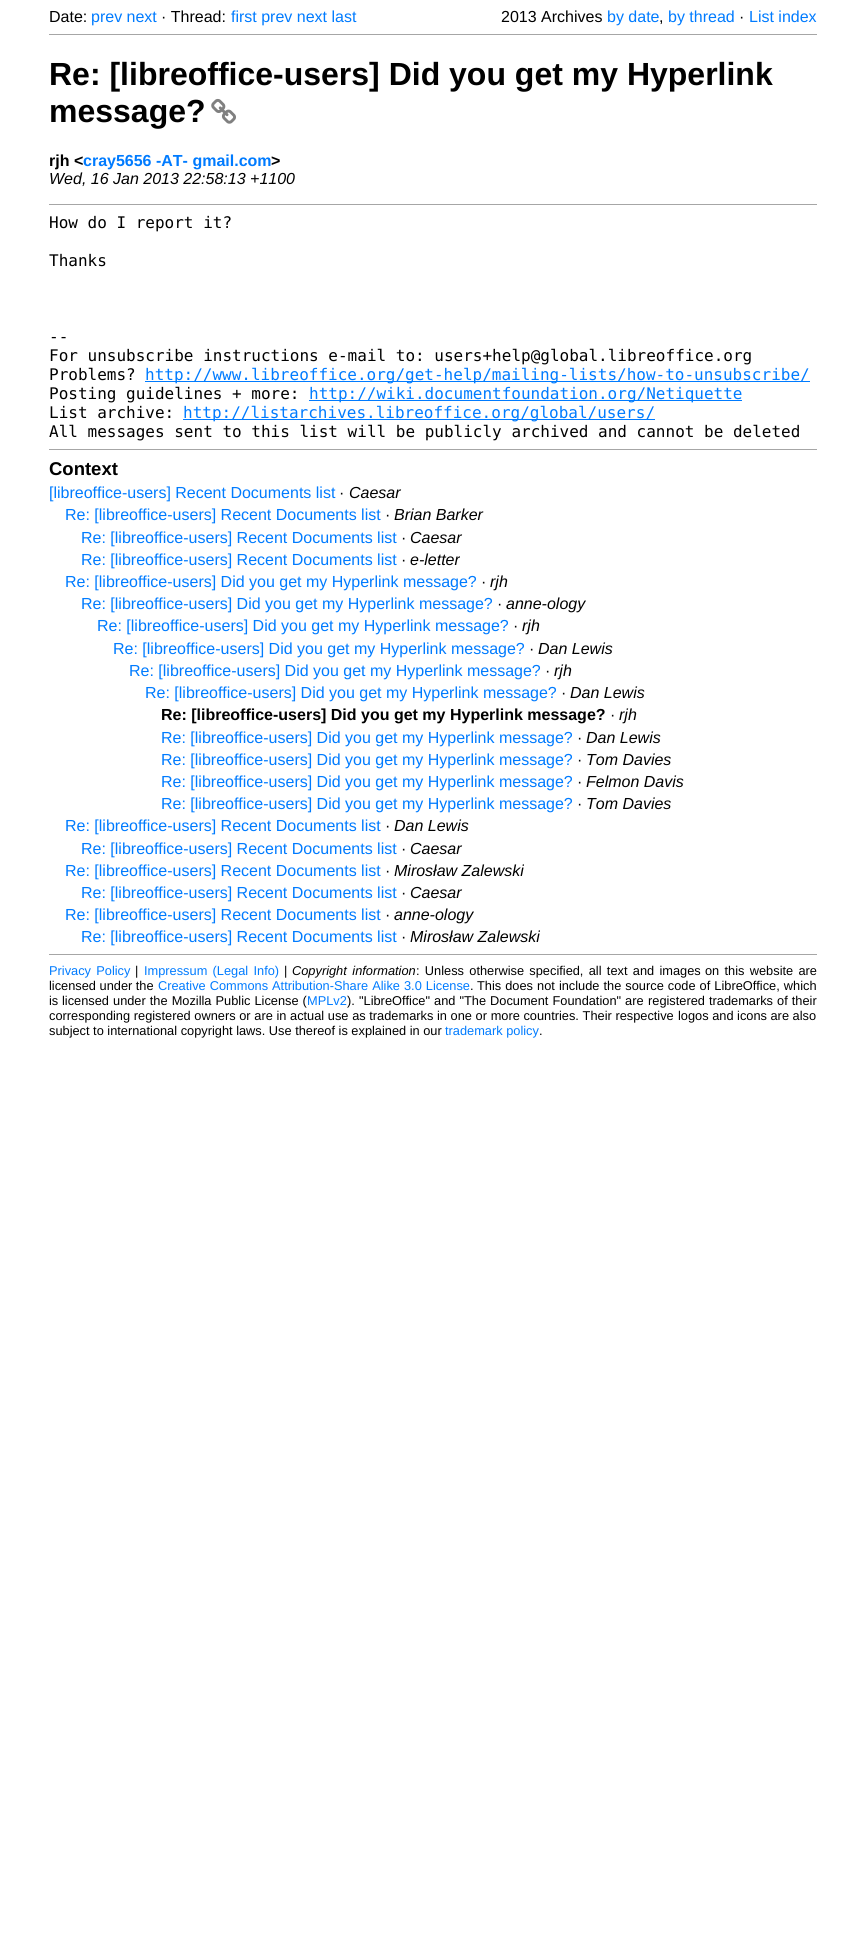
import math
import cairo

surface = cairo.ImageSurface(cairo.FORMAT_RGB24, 865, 1936)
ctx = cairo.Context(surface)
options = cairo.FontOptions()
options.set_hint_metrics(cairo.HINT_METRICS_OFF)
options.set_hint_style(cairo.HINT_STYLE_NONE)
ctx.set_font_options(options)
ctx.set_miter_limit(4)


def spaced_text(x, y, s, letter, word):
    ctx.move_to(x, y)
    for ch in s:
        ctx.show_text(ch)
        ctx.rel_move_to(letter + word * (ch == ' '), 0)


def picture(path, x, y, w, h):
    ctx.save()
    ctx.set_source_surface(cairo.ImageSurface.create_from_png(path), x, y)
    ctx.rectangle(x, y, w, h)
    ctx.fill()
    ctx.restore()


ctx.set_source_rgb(1, 1, 1)
ctx.paint()
ctx.select_font_face("Liberation Sans")
ctx.set_font_size(16)
ctx.set_source_rgb(0, 0, 0)
ctx.move_to(49, 22)
ctx.show_text("Date:")
ctx.set_source_rgb(0, 0.482, 1)
ctx.move_to(91, 22)
ctx.show_text("prev next")
ctx.set_source_rgb(0, 0, 0)
ctx.move_to(161, 22)
ctx.show_text("· Thread:")
ctx.set_source_rgb(0, 0.482, 1)
ctx.move_to(231, 22)
ctx.show_text("first prev next last")
ctx.set_source_rgb(0, 0, 0)
ctx.move_to(501, 22)
ctx.show_text("2013 Archives")
ctx.set_source_rgb(0, 0.482, 1)
ctx.move_to(607, 22)
ctx.show_text("by date")
ctx.move_to(668, 22)
ctx.show_text("by thread")
ctx.set_source_rgb(0, 0, 0)
ctx.move_to(739, 22)
ctx.show_text("·")
ctx.set_source_rgb(0, 0.482, 1)
ctx.move_to(749, 22)
ctx.show_text("List index")
ctx.set_source_rgb(0, 0, 0)
ctx.move_to(659, 22)
ctx.show_text(",")
ctx.set_source_rgb(0.651, 0.651, 0.651)
ctx.rectangle(49, 34, 768, 1)
ctx.fill()
ctx.select_font_face("Liberation Sans", cairo.FONT_SLANT_NORMAL, cairo.FONT_WEIGHT_BOLD)
ctx.set_font_size(32)
ctx.set_source_rgb(0, 0, 0)
ctx.move_to(49, 85)
ctx.show_text("Re: [libreoffice-users] Did you get my Hyperlink")
ctx.move_to(49, 122)
ctx.show_text("message?")
picture("img1.png", 211, 98, 25, 26)
ctx.set_font_size(16)
ctx.move_to(49, 166)
ctx.show_text("rjh <")
ctx.set_source_rgb(0, 0.482, 1)
ctx.move_to(83, 166)
ctx.show_text("cray5656 -AT- gmail.com")
ctx.set_source_rgb(0, 0, 0)
ctx.move_to(271, 166)
ctx.show_text(">")
ctx.select_font_face("Liberation Sans", cairo.FONT_SLANT_ITALIC)
ctx.move_to(49, 184)
ctx.show_text("Wed, 16 Jan 2013 22:58:13 +1100")
ctx.set_source_rgb(0.651, 0.651, 0.651)
ctx.rectangle(49, 204, 768, 1)
ctx.fill()
ctx.select_font_face("DejaVu Sans Mono")
ctx.set_source_rgb(0, 0, 0)
ctx.move_to(49, 228)
ctx.show_text("How do I report it?")
ctx.move_to(49, 266)
ctx.show_text("Thanks")
ctx.move_to(49, 342)
ctx.show_text("--")
ctx.move_to(49, 361)
ctx.show_text("For unsubscribe instructions e-mail to: users+help@global.libreoffice.org")
ctx.move_to(49, 380)
ctx.show_text("Problems?")
ctx.set_source_rgb(0, 0.482, 1)
ctx.rectangle(145, 381, 665, 1)
ctx.fill()
ctx.move_to(145, 380)
ctx.show_text("http://www.libreoffice.org/get-help/mailing-lists/how-to-unsubscribe/")
ctx.set_source_rgb(0, 0, 0)
ctx.move_to(49, 399)
ctx.show_text("Posting guidelines + more:")
ctx.set_source_rgb(0, 0.482, 1)
ctx.rectangle(309, 400, 433, 1)
ctx.fill()
ctx.move_to(309, 399)
ctx.show_text("http://wiki.documentfoundation.org/Netiquette")
ctx.set_source_rgb(0, 0, 0)
ctx.move_to(49, 418)
ctx.show_text("List archive:")
ctx.set_source_rgb(0, 0.482, 1)
ctx.rectangle(183, 419, 472, 1)
ctx.fill()
ctx.move_to(183, 418)
ctx.show_text("http://listarchives.libreoffice.org/global/users/")
ctx.set_source_rgb(0, 0, 0)
ctx.move_to(49, 437)
ctx.show_text("All messages sent to this list will be publicly archived and cannot be deleted")
ctx.set_source_rgb(0.651, 0.651, 0.651)
ctx.rectangle(49, 449, 768, 1)
ctx.fill()
ctx.select_font_face("Liberation Sans", cairo.FONT_SLANT_NORMAL, cairo.FONT_WEIGHT_BOLD)
ctx.set_font_size(18.5)
ctx.set_source_rgb(0, 0, 0)
ctx.move_to(49, 475)
ctx.show_text("Context")
ctx.select_font_face("Liberation Sans")
ctx.set_font_size(16)
ctx.set_source_rgb(0, 0.482, 1)
ctx.move_to(49, 498)
ctx.show_text("[libreoffice-users] Recent Documents list")
ctx.set_source_rgb(0, 0, 0)
ctx.move_to(339, 498)
ctx.show_text("·")
ctx.select_font_face("Liberation Sans", cairo.FONT_SLANT_ITALIC)
ctx.move_to(349, 498)
ctx.show_text("Caesar")
ctx.select_font_face("Liberation Sans")
ctx.set_source_rgb(0, 0.482, 1)
ctx.move_to(65, 520)
ctx.show_text("Re: [libreoffice-users] Recent Documents list")
ctx.set_source_rgb(0, 0, 0)
ctx.move_to(385, 520)
ctx.show_text("·")
ctx.select_font_face("Liberation Sans", cairo.FONT_SLANT_ITALIC)
ctx.move_to(394, 520)
ctx.show_text("Brian Barker")
ctx.select_font_face("Liberation Sans")
ctx.set_source_rgb(0, 0.482, 1)
ctx.move_to(81, 543)
ctx.show_text("Re: [libreoffice-users] Recent Documents list")
ctx.set_source_rgb(0, 0, 0)
ctx.move_to(401, 543)
ctx.show_text("·")
ctx.select_font_face("Liberation Sans", cairo.FONT_SLANT_ITALIC)
ctx.move_to(410, 543)
ctx.show_text("Caesar")
ctx.select_font_face("Liberation Sans")
ctx.set_source_rgb(0, 0.482, 1)
ctx.move_to(81, 565)
ctx.show_text("Re: [libreoffice-users] Recent Documents list")
ctx.set_source_rgb(0, 0, 0)
ctx.move_to(401, 565)
ctx.show_text("·")
ctx.select_font_face("Liberation Sans", cairo.FONT_SLANT_ITALIC)
ctx.move_to(410, 565)
ctx.show_text("e-letter")
ctx.select_font_face("Liberation Sans")
ctx.set_source_rgb(0, 0.482, 1)
ctx.move_to(65, 587)
ctx.show_text("Re: [libreoffice-users] Did you get my Hyperlink message?")
ctx.set_source_rgb(0, 0, 0)
ctx.move_to(481, 587)
ctx.show_text("·")
ctx.select_font_face("Liberation Sans", cairo.FONT_SLANT_ITALIC)
ctx.move_to(490, 587)
ctx.show_text("rjh")
ctx.select_font_face("Liberation Sans")
ctx.set_source_rgb(0, 0.482, 1)
ctx.move_to(81, 609)
ctx.show_text("Re: [libreoffice-users] Did you get my Hyperlink message?")
ctx.set_source_rgb(0, 0, 0)
ctx.move_to(497, 609)
ctx.show_text("·")
ctx.select_font_face("Liberation Sans", cairo.FONT_SLANT_ITALIC)
ctx.move_to(506, 609)
ctx.show_text("anne-ology")
ctx.select_font_face("Liberation Sans")
ctx.set_source_rgb(0, 0.482, 1)
ctx.move_to(97, 631)
ctx.show_text("Re: [libreoffice-users] Did you get my Hyperlink message?")
ctx.set_source_rgb(0, 0, 0)
ctx.move_to(513, 631)
ctx.show_text("·")
ctx.select_font_face("Liberation Sans", cairo.FONT_SLANT_ITALIC)
ctx.move_to(522, 631)
ctx.show_text("rjh")
ctx.select_font_face("Liberation Sans")
ctx.set_source_rgb(0, 0.482, 1)
ctx.move_to(113, 654)
ctx.show_text("Re: [libreoffice-users] Did you get my Hyperlink message?")
ctx.set_source_rgb(0, 0, 0)
ctx.move_to(529, 654)
ctx.show_text("·")
ctx.select_font_face("Liberation Sans", cairo.FONT_SLANT_ITALIC)
ctx.move_to(538, 654)
ctx.show_text("Dan Lewis")
ctx.select_font_face("Liberation Sans")
ctx.set_source_rgb(0, 0.482, 1)
ctx.move_to(129, 676)
ctx.show_text("Re: [libreoffice-users] Did you get my Hyperlink message?")
ctx.set_source_rgb(0, 0, 0)
ctx.move_to(545, 676)
ctx.show_text("·")
ctx.select_font_face("Liberation Sans", cairo.FONT_SLANT_ITALIC)
ctx.move_to(554, 676)
ctx.show_text("rjh")
ctx.select_font_face("Liberation Sans")
ctx.set_source_rgb(0, 0.482, 1)
ctx.move_to(145, 698)
ctx.show_text("Re: [libreoffice-users] Did you get my Hyperlink message?")
ctx.set_source_rgb(0, 0, 0)
ctx.move_to(561, 698)
ctx.show_text("·")
ctx.select_font_face("Liberation Sans", cairo.FONT_SLANT_ITALIC)
ctx.move_to(570, 698)
ctx.show_text("Dan Lewis")
ctx.select_font_face("Liberation Sans", cairo.FONT_SLANT_NORMAL, cairo.FONT_WEIGHT_BOLD)
ctx.move_to(161, 720)
ctx.show_text("Re: [libreoffice-users] Did you get my Hyperlink message?")
ctx.select_font_face("Liberation Sans")
ctx.move_to(610, 720)
ctx.show_text("·")
ctx.select_font_face("Liberation Sans", cairo.FONT_SLANT_ITALIC)
ctx.move_to(619, 720)
ctx.show_text("rjh")
ctx.select_font_face("Liberation Sans")
ctx.set_source_rgb(0, 0.482, 1)
ctx.move_to(161, 743)
ctx.show_text("Re: [libreoffice-users] Did you get my Hyperlink message?")
ctx.set_source_rgb(0, 0, 0)
ctx.move_to(577, 743)
ctx.show_text("·")
ctx.select_font_face("Liberation Sans", cairo.FONT_SLANT_ITALIC)
ctx.move_to(586, 743)
ctx.show_text("Dan Lewis")
ctx.select_font_face("Liberation Sans")
ctx.set_source_rgb(0, 0.482, 1)
ctx.move_to(161, 765)
ctx.show_text("Re: [libreoffice-users] Did you get my Hyperlink message?")
ctx.set_source_rgb(0, 0, 0)
ctx.move_to(577, 765)
ctx.show_text("·")
ctx.select_font_face("Liberation Sans", cairo.FONT_SLANT_ITALIC)
ctx.move_to(586, 765)
ctx.show_text("Tom Davies")
ctx.select_font_face("Liberation Sans")
ctx.set_source_rgb(0, 0.482, 1)
ctx.move_to(161, 787)
ctx.show_text("Re: [libreoffice-users] Did you get my Hyperlink message?")
ctx.set_source_rgb(0, 0, 0)
ctx.move_to(577, 787)
ctx.show_text("·")
ctx.select_font_face("Liberation Sans", cairo.FONT_SLANT_ITALIC)
ctx.move_to(586, 787)
ctx.show_text("Felmon Davis")
ctx.select_font_face("Liberation Sans")
ctx.set_source_rgb(0, 0.482, 1)
ctx.move_to(161, 809)
ctx.show_text("Re: [libreoffice-users] Did you get my Hyperlink message?")
ctx.set_source_rgb(0, 0, 0)
ctx.move_to(577, 809)
ctx.show_text("·")
ctx.select_font_face("Liberation Sans", cairo.FONT_SLANT_ITALIC)
ctx.move_to(586, 809)
ctx.show_text("Tom Davies")
ctx.select_font_face("Liberation Sans")
ctx.set_source_rgb(0, 0.482, 1)
ctx.move_to(65, 831)
ctx.show_text("Re: [libreoffice-users] Recent Documents list")
ctx.set_source_rgb(0, 0, 0)
ctx.move_to(385, 831)
ctx.show_text("·")
ctx.select_font_face("Liberation Sans", cairo.FONT_SLANT_ITALIC)
ctx.move_to(394, 831)
ctx.show_text("Dan Lewis")
ctx.select_font_face("Liberation Sans")
ctx.set_source_rgb(0, 0.482, 1)
ctx.move_to(81, 854)
ctx.show_text("Re: [libreoffice-users] Recent Documents list")
ctx.set_source_rgb(0, 0, 0)
ctx.move_to(401, 854)
ctx.show_text("·")
ctx.select_font_face("Liberation Sans", cairo.FONT_SLANT_ITALIC)
ctx.move_to(410, 854)
ctx.show_text("Caesar")
ctx.select_font_face("Liberation Sans")
ctx.set_source_rgb(0, 0.482, 1)
ctx.move_to(65, 876)
ctx.show_text("Re: [libreoffice-users] Recent Documents list")
ctx.set_source_rgb(0, 0, 0)
ctx.move_to(385, 876)
ctx.show_text("·")
ctx.select_font_face("Liberation Sans", cairo.FONT_SLANT_ITALIC)
ctx.move_to(394, 876)
ctx.show_text("Mirosław Zalewski")
ctx.select_font_face("Liberation Sans")
ctx.set_source_rgb(0, 0.482, 1)
ctx.move_to(81, 898)
ctx.show_text("Re: [libreoffice-users] Recent Documents list")
ctx.set_source_rgb(0, 0, 0)
ctx.move_to(401, 898)
ctx.show_text("·")
ctx.select_font_face("Liberation Sans", cairo.FONT_SLANT_ITALIC)
ctx.move_to(410, 898)
ctx.show_text("Caesar")
ctx.select_font_face("Liberation Sans")
ctx.set_source_rgb(0, 0.482, 1)
ctx.move_to(65, 920)
ctx.show_text("Re: [libreoffice-users] Recent Documents list")
ctx.set_source_rgb(0, 0, 0)
ctx.move_to(385, 920)
ctx.show_text("·")
ctx.select_font_face("Liberation Sans", cairo.FONT_SLANT_ITALIC)
ctx.move_to(394, 920)
ctx.show_text("anne-ology")
ctx.select_font_face("Liberation Sans")
ctx.set_source_rgb(0, 0.482, 1)
ctx.move_to(81, 942)
ctx.show_text("Re: [libreoffice-users] Recent Documents list")
ctx.set_source_rgb(0, 0, 0)
ctx.move_to(401, 942)
ctx.show_text("·")
ctx.select_font_face("Liberation Sans", cairo.FONT_SLANT_ITALIC)
ctx.move_to(410, 942)
ctx.show_text("Mirosław Zalewski")
ctx.set_source_rgb(0.651, 0.651, 0.651)
ctx.rectangle(49, 954, 768, 1)
ctx.fill()
ctx.select_font_face("Liberation Sans")
ctx.set_font_size(12.8)
ctx.set_source_rgb(0, 0.482, 1)
spaced_text(49, 975, "Privacy Policy", 0, 1.75)
ctx.set_source_rgb(0, 0, 0)
ctx.move_to(135, 975)
ctx.show_text("|")
ctx.set_source_rgb(0, 0.482, 1)
spaced_text(144, 975, "Impressum (Legal Info)", 0, 1.75)
ctx.set_source_rgb(0, 0, 0)
ctx.move_to(284, 975)
ctx.show_text("|")
ctx.select_font_face("Liberation Sans", cairo.FONT_SLANT_ITALIC)
spaced_text(292, 975, "Copyright information", 0, 2)
ctx.select_font_face("Liberation Sans")
spaced_text(416, 975, ": Unless otherwise specified, all text and images", 0, 1.75)
spaced_text(705, 975, "on this website are", 0, 1.75)
ctx.move_to(49, 990)
ctx.show_text("licensed under the")
ctx.set_source_rgb(0, 0.482, 1)
spaced_text(158, 990, "Creative Commons Attribution-Share Alike 3.0 License", 0, 0.5)
ctx.set_source_rgb(0, 0, 0)
ctx.move_to(470, 990)
ctx.show_text(".")
spaced_text(477, 990, "This does not include the source code of LibreOffice, which", 0, 0.5)
ctx.move_to(49, 1005)
ctx.show_text("is")
spaced_text(62, 1005, "licensed under the Mozilla Public License (", 0, 0.5)
ctx.set_source_rgb(0, 0.482, 1)
ctx.move_to(307, 1005)
ctx.show_text("MPLv2")
ctx.set_source_rgb(0, 0, 0)
ctx.move_to(347, 1005)
ctx.show_text(").")
spaced_text(359, 1005, "\"LibreOffice\" and \"The Document Foundation\" are", 0, 0.5)
spaced_text(648, 1005, "registered trademarks of their", 0, 0.5)
spaced_text(49, 1020, "corresponding registered owners or are in actual use as trademarks in one or more countries. Their respective", 0, 0.1)
ctx.move_to(678, 1020)
ctx.show_text("logos and icons are also")
ctx.move_to(49, 1035)
ctx.show_text("subject to international copyright laws. Use thereof is explained in our")
ctx.set_source_rgb(0, 0.482, 1)
ctx.move_to(445, 1035)
ctx.show_text("trademark policy")
ctx.set_source_rgb(0, 0, 0)
ctx.move_to(539, 1035)
ctx.show_text(".")
surface.write_to_png("page.png")
